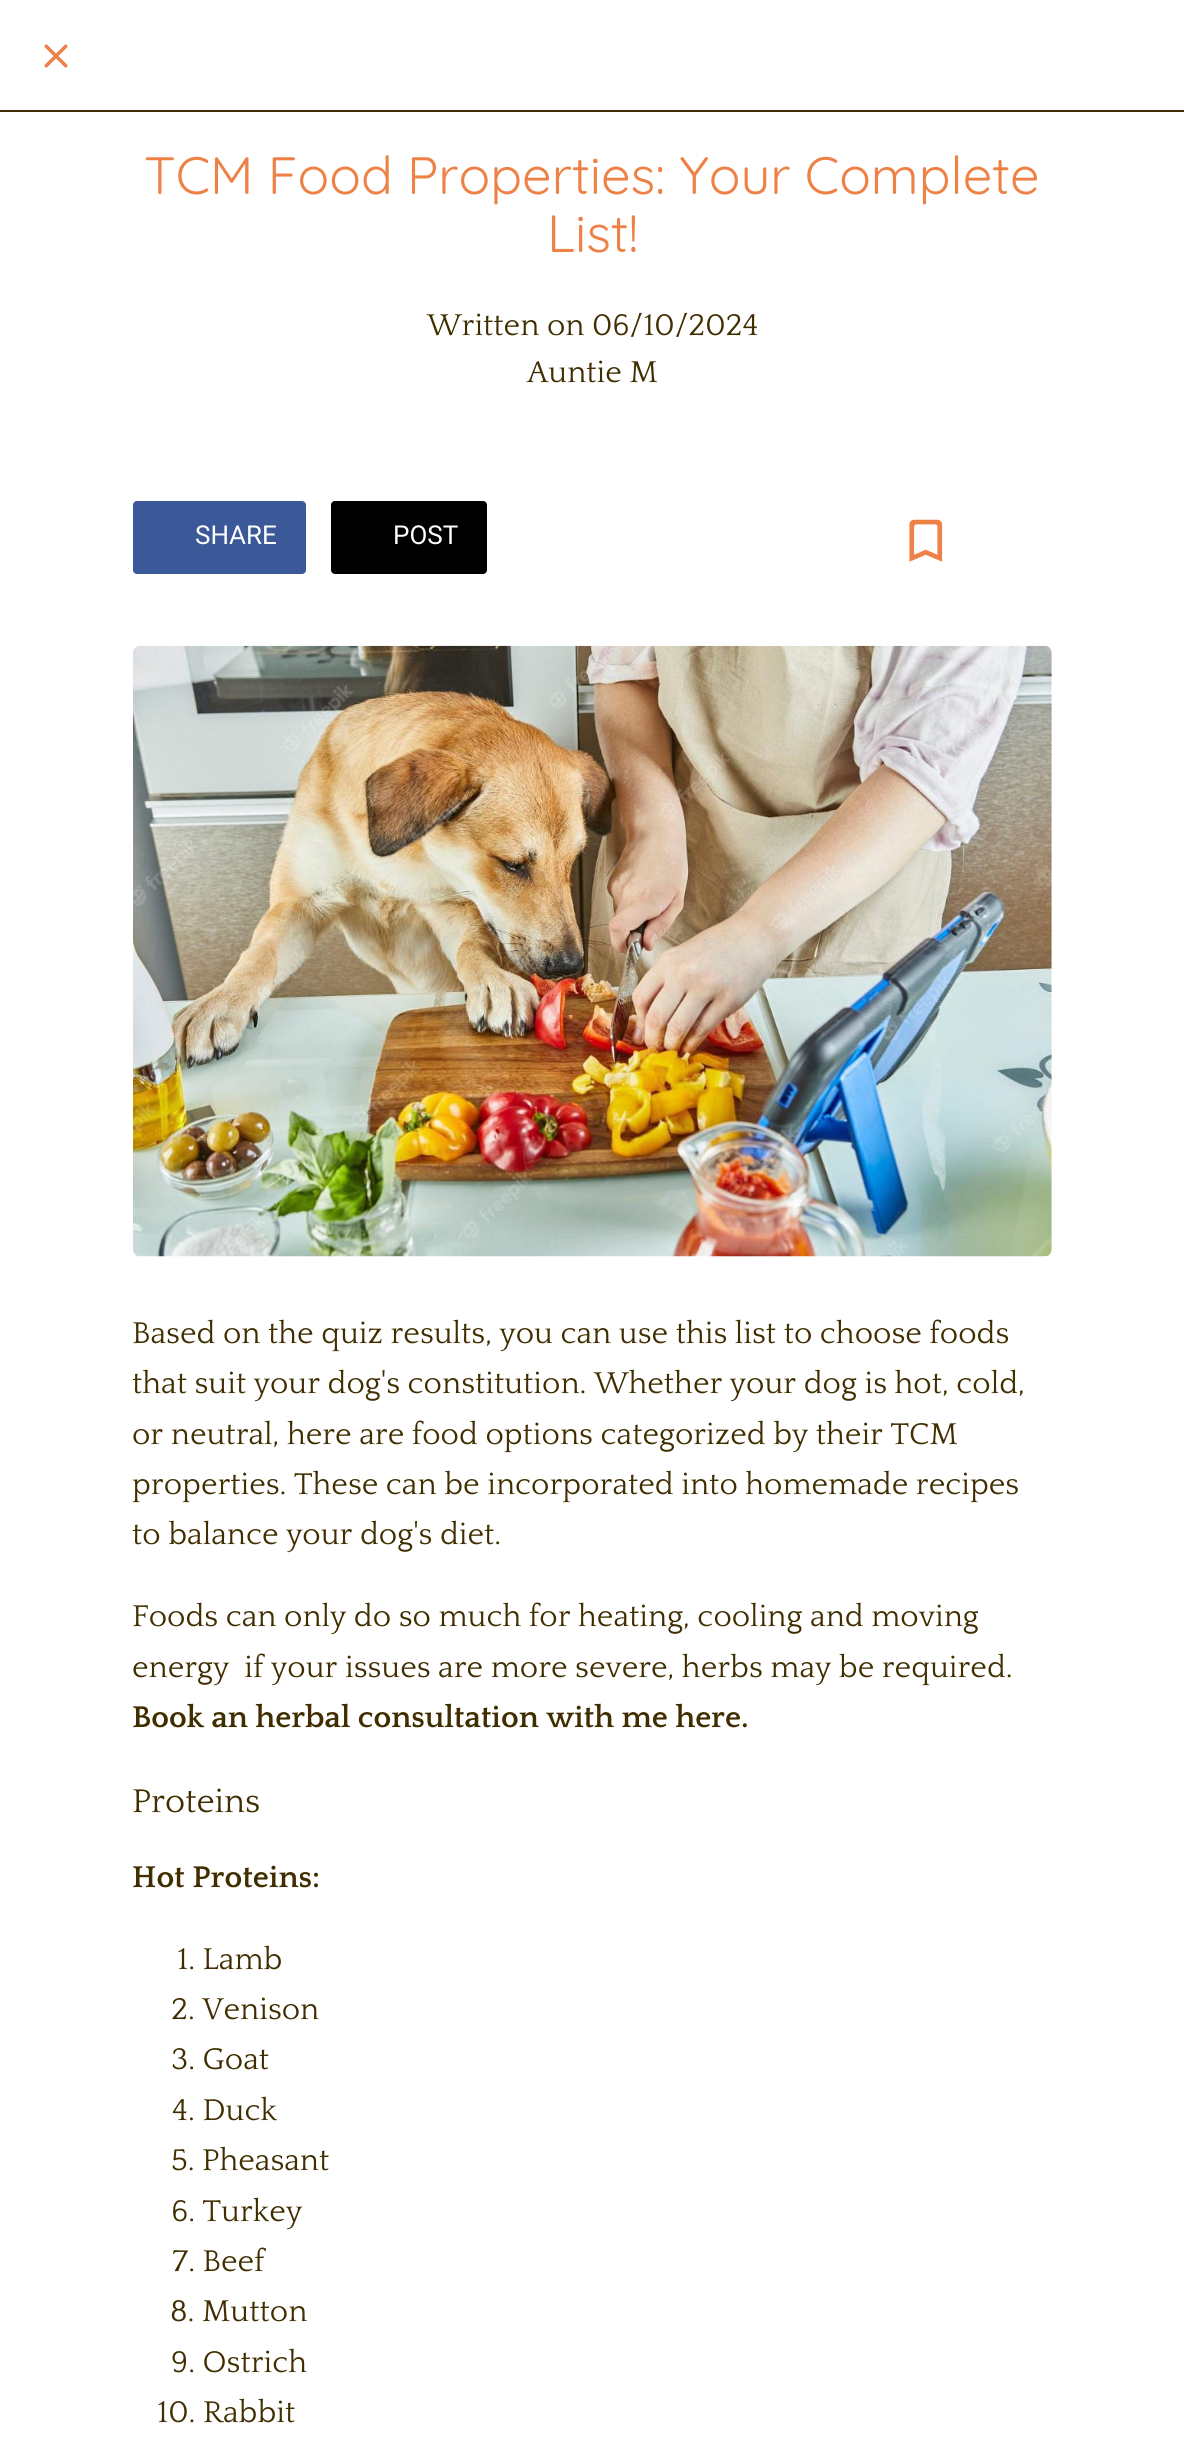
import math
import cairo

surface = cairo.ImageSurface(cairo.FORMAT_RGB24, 1184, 2443)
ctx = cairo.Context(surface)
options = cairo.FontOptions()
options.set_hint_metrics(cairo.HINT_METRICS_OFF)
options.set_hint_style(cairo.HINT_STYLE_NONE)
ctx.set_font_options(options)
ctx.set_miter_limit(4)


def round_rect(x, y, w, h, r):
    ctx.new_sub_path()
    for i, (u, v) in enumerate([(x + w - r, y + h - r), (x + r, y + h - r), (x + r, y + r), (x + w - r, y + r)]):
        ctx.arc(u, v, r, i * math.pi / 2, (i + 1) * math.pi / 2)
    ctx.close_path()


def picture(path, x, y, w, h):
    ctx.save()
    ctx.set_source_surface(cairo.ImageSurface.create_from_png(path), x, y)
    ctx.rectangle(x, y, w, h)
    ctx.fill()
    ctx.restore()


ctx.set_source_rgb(1, 1, 1)
ctx.paint()
ctx.set_source_rgb(0.251, 0.18, 0)
ctx.rectangle(0, 110, 1184, 2)
ctx.fill()
picture("img1.png", 44, 44, 24, 24)
ctx.select_font_face("Quicksand")
ctx.set_font_size(52.5)
ctx.set_source_rgb(0.933, 0.506, 0.275)
ctx.move_to(144, 194)
ctx.show_text("TCM Food Properties: Your Complete")
ctx.move_to(547, 252)
ctx.show_text("List!")
ctx.select_font_face("Quattrocento")
ctx.set_font_size(31.5)
ctx.set_source_rgb(0.251, 0.18, 0)
ctx.move_to(427, 335)
ctx.show_text("Written on 06/10/2024")
ctx.move_to(527, 382)
ctx.show_text("Auntie M")
ctx.set_source_rgb(0.231, 0.349, 0.6)
round_rect(133, 501, 173, 73, 4)
ctx.fill()
ctx.select_font_face("Roboto")
ctx.set_font_size(26)
ctx.set_source_rgb(1, 1, 1)
ctx.move_to(195, 544)
ctx.show_text("SHARE")
ctx.set_source_rgb(0, 0, 0)
round_rect(331, 501, 156, 73, 4)
ctx.fill()
ctx.set_source_rgb(1, 1, 1)
ctx.move_to(393, 544)
ctx.show_text("POST")
picture("img2.png", 909, 519, 34, 43)
picture("img3.png", 133, 645, 919, 612)
ctx.select_font_face("Quattrocento")
ctx.set_font_size(31.5)
ctx.set_source_rgb(0.251, 0.18, 0)
ctx.move_to(132, 1343)
ctx.show_text("Based on the quiz results, you can use this list to choose foods")
ctx.move_to(132, 1393)
ctx.show_text("that suit your dog's constitution. Whether your dog is hot, cold,")
ctx.move_to(132, 1444)
ctx.show_text("or neutral, here are food options categorized by their TCM")
ctx.move_to(132, 1494)
ctx.show_text("properties. These can be incorporated into homemade recipes")
ctx.move_to(132, 1544)
ctx.show_text("to balance your dog's diet.")
ctx.move_to(132, 1626)
ctx.show_text("Foods can only do so much for heating, cooling and moving")
ctx.move_to(132, 1677)
ctx.show_text("energy  if your issues are more severe, herbs may be required.")
ctx.select_font_face("Quattrocento", cairo.FONT_SLANT_NORMAL, cairo.FONT_WEIGHT_BOLD)
ctx.move_to(132, 1727)
ctx.show_text("Book an herbal consultation with me here.")
ctx.select_font_face("Quattrocento")
ctx.set_font_size(34.5)
ctx.move_to(132, 1812)
ctx.show_text("Proteins")
ctx.select_font_face("Quattrocento", cairo.FONT_SLANT_NORMAL, cairo.FONT_WEIGHT_BOLD)
ctx.set_font_size(31.5)
ctx.move_to(132, 1887)
ctx.show_text("Hot Proteins:")
ctx.select_font_face("Quattrocento")
ctx.move_to(177, 1969)
ctx.show_text("1. Lamb")
ctx.move_to(171, 2019)
ctx.show_text("2. Venison")
ctx.move_to(171, 2069)
ctx.show_text("3. Goat")
ctx.move_to(172, 2120)
ctx.show_text("4. Duck")
ctx.move_to(171, 2170)
ctx.show_text("5. Pheasant")
ctx.move_to(171, 2221)
ctx.show_text("6. Turkey")
ctx.move_to(172, 2271)
ctx.show_text("7. Beef")
ctx.move_to(170, 2321)
ctx.show_text("8. Mutton")
ctx.move_to(171, 2372)
ctx.show_text("9. Ostrich")
ctx.move_to(157, 2422)
ctx.show_text("10. Rabbit")
surface.write_to_png("page.png")
